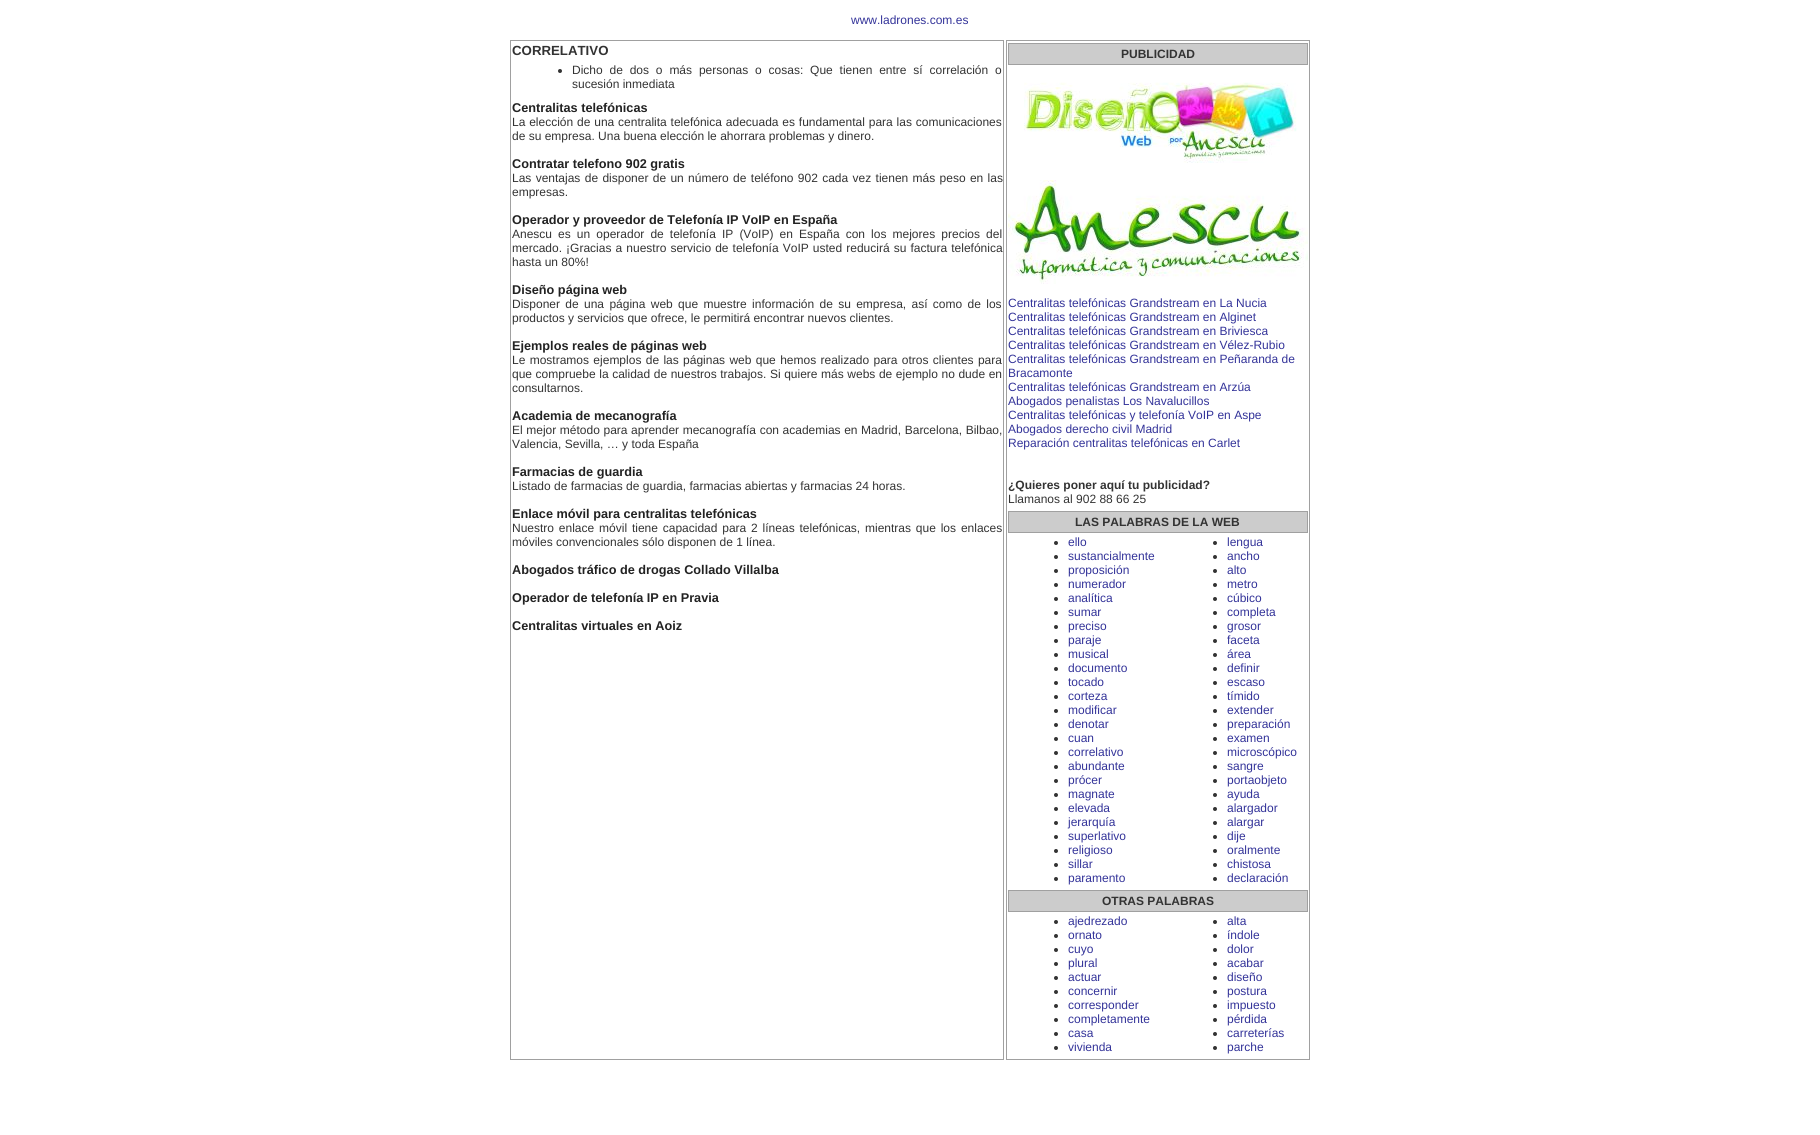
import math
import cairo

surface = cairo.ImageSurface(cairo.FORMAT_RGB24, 1820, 1135)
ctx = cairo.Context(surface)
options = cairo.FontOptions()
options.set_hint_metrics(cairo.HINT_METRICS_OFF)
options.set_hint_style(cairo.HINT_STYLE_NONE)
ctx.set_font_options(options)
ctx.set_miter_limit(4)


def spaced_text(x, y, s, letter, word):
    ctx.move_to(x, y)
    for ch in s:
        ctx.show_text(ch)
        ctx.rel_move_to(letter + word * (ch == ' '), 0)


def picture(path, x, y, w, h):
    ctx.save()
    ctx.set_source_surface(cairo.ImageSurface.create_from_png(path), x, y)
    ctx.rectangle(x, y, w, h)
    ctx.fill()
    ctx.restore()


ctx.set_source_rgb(1, 1, 1)
ctx.paint()
ctx.select_font_face("Liberation Sans")
ctx.set_font_size(12)
ctx.set_source_rgb(0.2, 0.2, 0.6)
ctx.move_to(851, 24)
ctx.show_text("www.ladrones.com.es")
ctx.rectangle(510.5, 40.5, 493, 1019)
ctx.set_source_rgb(0.627, 0.627, 0.627)
ctx.set_line_width(1)
ctx.stroke()
ctx.select_font_face("Liberation Sans", cairo.FONT_SLANT_NORMAL, cairo.FONT_WEIGHT_BOLD)
ctx.set_font_size(13.25)
ctx.set_source_rgb(0.2, 0.2, 0.2)
ctx.move_to(512, 55)
ctx.show_text("CORRELATIVO")
ctx.new_path()
ctx.arc(560, 71, 2, 0, 2 * math.pi)
ctx.fill()
ctx.select_font_face("Liberation Sans")
ctx.set_font_size(12)
spaced_text(572, 74, "Dicho de dos o más personas o cosas: Que tienen entre sí correlación o", 0, 3.5)
ctx.move_to(572, 88)
ctx.show_text("sucesión inmediata")
ctx.select_font_face("Liberation Sans", cairo.FONT_SLANT_NORMAL, cairo.FONT_WEIGHT_BOLD)
ctx.set_font_size(12.7)
ctx.set_source_rgb(0.133, 0.133, 0.133)
ctx.move_to(512, 112)
ctx.show_text("Centralitas telefónicas")
ctx.select_font_face("Liberation Sans")
ctx.set_font_size(12)
ctx.set_source_rgb(0.2, 0.2, 0.2)
spaced_text(512, 126, "La elección de una centralita telefónica adecuada es fundamental para las comunicaciones", 0, 0.5)
ctx.move_to(512, 140)
ctx.show_text("de su empresa. Una buena elección le ahorrara problemas y dinero.")
ctx.select_font_face("Liberation Sans", cairo.FONT_SLANT_NORMAL, cairo.FONT_WEIGHT_BOLD)
ctx.set_font_size(12.7)
ctx.set_source_rgb(0.133, 0.133, 0.133)
ctx.move_to(512, 168)
ctx.show_text("Contratar telefono 902 gratis")
ctx.select_font_face("Liberation Sans")
ctx.set_font_size(12)
ctx.set_source_rgb(0.2, 0.2, 0.2)
spaced_text(512, 182, "Las ventajas de disponer de un número de teléfono 902 cada vez tienen más peso en las", 0, 1)
ctx.move_to(512, 196)
ctx.show_text("empresas.")
ctx.select_font_face("Liberation Sans", cairo.FONT_SLANT_NORMAL, cairo.FONT_WEIGHT_BOLD)
ctx.set_font_size(12.7)
ctx.set_source_rgb(0.133, 0.133, 0.133)
ctx.move_to(512, 224)
ctx.show_text("Operador y proveedor de Telefonía IP VoIP en España")
ctx.select_font_face("Liberation Sans")
ctx.set_font_size(12)
ctx.set_source_rgb(0.2, 0.2, 0.2)
spaced_text(512, 238, "Anescu es un operador de telefonía IP (VoIP) en España con los mejores precios del", 0, 2.75)
spaced_text(512, 252, "mercado. ¡Gracias a nuestro servicio de telefonía VoIP usted reducirá su factura telefónica", 0, 0.75)
ctx.move_to(512, 266)
ctx.show_text("hasta un 80%!")
ctx.select_font_face("Liberation Sans", cairo.FONT_SLANT_NORMAL, cairo.FONT_WEIGHT_BOLD)
ctx.set_font_size(12.7)
ctx.set_source_rgb(0.133, 0.133, 0.133)
ctx.move_to(512, 294)
ctx.show_text("Diseño página web")
ctx.select_font_face("Liberation Sans")
ctx.set_font_size(12)
ctx.set_source_rgb(0.2, 0.2, 0.2)
spaced_text(512, 308, "Disponer de una página web que muestre información de su empresa, así como de los", 0, 2)
ctx.move_to(512, 322)
ctx.show_text("productos y servicios que ofrece, le permitirá encontrar nuevos clientes.")
ctx.select_font_face("Liberation Sans", cairo.FONT_SLANT_NORMAL, cairo.FONT_WEIGHT_BOLD)
ctx.set_font_size(12.7)
ctx.set_source_rgb(0.133, 0.133, 0.133)
ctx.move_to(512, 350)
ctx.show_text("Ejemplos reales de páginas web")
ctx.select_font_face("Liberation Sans")
ctx.set_font_size(12)
ctx.set_source_rgb(0.2, 0.2, 0.2)
spaced_text(512, 364, "Le mostramos ejemplos de las páginas web que hemos realizado para otros clientes para", 0, 1)
spaced_text(512, 378, "que compruebe la calidad de nuestros trabajos. Si quiere más webs de ejemplo no dude en", 0, 0.25)
ctx.move_to(512, 392)
ctx.show_text("consultarnos.")
ctx.select_font_face("Liberation Sans", cairo.FONT_SLANT_NORMAL, cairo.FONT_WEIGHT_BOLD)
ctx.set_font_size(12.7)
ctx.set_source_rgb(0.133, 0.133, 0.133)
ctx.move_to(512, 420)
ctx.show_text("Academia de mecanografía")
ctx.select_font_face("Liberation Sans")
ctx.set_font_size(12)
ctx.set_source_rgb(0.2, 0.2, 0.2)
spaced_text(512, 434, "El mejor método para aprender mecanografía con academias en Madrid, Barcelona, Bilbao,", 0, 0.25)
ctx.move_to(512, 448)
ctx.show_text("Valencia, Sevilla, … y toda España")
ctx.select_font_face("Liberation Sans", cairo.FONT_SLANT_NORMAL, cairo.FONT_WEIGHT_BOLD)
ctx.set_font_size(12.7)
ctx.set_source_rgb(0.133, 0.133, 0.133)
ctx.move_to(512, 476)
ctx.show_text("Farmacias de guardia")
ctx.select_font_face("Liberation Sans")
ctx.set_font_size(12)
ctx.set_source_rgb(0.2, 0.2, 0.2)
ctx.move_to(512, 490)
ctx.show_text("Listado de farmacias de guardia, farmacias abiertas y farmacias 24 horas.")
ctx.select_font_face("Liberation Sans", cairo.FONT_SLANT_NORMAL, cairo.FONT_WEIGHT_BOLD)
ctx.set_font_size(12.7)
ctx.set_source_rgb(0.133, 0.133, 0.133)
ctx.move_to(512, 518)
ctx.show_text("Enlace móvil para centralitas telefónicas")
ctx.select_font_face("Liberation Sans")
ctx.set_font_size(12)
ctx.set_source_rgb(0.2, 0.2, 0.2)
spaced_text(512, 532, "Nuestro enlace móvil tiene capacidad para 2 líneas telefónicas, mientras que los enlaces", 0, 1.5)
ctx.move_to(512, 546)
ctx.show_text("móviles convencionales sólo disponen de 1 línea.")
ctx.select_font_face("Liberation Sans", cairo.FONT_SLANT_NORMAL, cairo.FONT_WEIGHT_BOLD)
ctx.set_font_size(12.7)
ctx.set_source_rgb(0.133, 0.133, 0.133)
ctx.move_to(512, 574)
ctx.show_text("Abogados tráfico de drogas Collado Villalba")
ctx.move_to(512, 602)
ctx.show_text("Operador de telefonía IP en Pravia")
ctx.move_to(512, 630)
ctx.show_text("Centralitas virtuales en Aoiz")
ctx.rectangle(1006.5, 40.5, 303, 1019)
ctx.set_source_rgb(0.627, 0.627, 0.627)
ctx.stroke()
ctx.set_source_rgb(0.8, 0.8, 0.8)
ctx.rectangle(1008.5, 43.5, 299, 21)
ctx.fill_preserve()
ctx.set_source_rgb(0.627, 0.627, 0.627)
ctx.stroke()
ctx.set_font_size(12)
ctx.set_source_rgb(0.2, 0.2, 0.2)
ctx.move_to(1121, 58)
ctx.show_text("PUBLICIDAD")
picture("img1.png", 1024, 82, 273, 81)
picture("img2.png", 1008, 180, 300, 104)
ctx.select_font_face("Liberation Sans")
ctx.set_source_rgb(0.2, 0.2, 0.6)
ctx.move_to(1008, 307)
ctx.show_text("Centralitas telefónicas Grandstream en La Nucia")
ctx.move_to(1008, 321)
ctx.show_text("Centralitas telefónicas Grandstream en Alginet")
ctx.move_to(1008, 335)
ctx.show_text("Centralitas telefónicas Grandstream en Briviesca")
ctx.move_to(1008, 349)
ctx.show_text("Centralitas telefónicas Grandstream en Vélez-Rubio")
ctx.move_to(1008, 363)
ctx.show_text("Centralitas telefónicas Grandstream en Peñaranda de")
ctx.move_to(1008, 377)
ctx.show_text("Bracamonte")
ctx.move_to(1008, 391)
ctx.show_text("Centralitas telefónicas Grandstream en Arzúa")
ctx.move_to(1008, 405)
ctx.show_text("Abogados penalistas Los Navalucillos")
ctx.move_to(1008, 419)
ctx.show_text("Centralitas telefónicas y telefonía VoIP en Aspe")
ctx.move_to(1008, 433)
ctx.show_text("Abogados derecho civil Madrid")
ctx.move_to(1008, 447)
ctx.show_text("Reparación centralitas telefónicas en Carlet")
ctx.select_font_face("Liberation Sans", cairo.FONT_SLANT_NORMAL, cairo.FONT_WEIGHT_BOLD)
ctx.set_source_rgb(0.2, 0.2, 0.2)
ctx.move_to(1008, 489)
ctx.show_text("¿Quieres poner aquí tu publicidad?")
ctx.select_font_face("Liberation Sans")
ctx.move_to(1008, 503)
ctx.show_text("Llamanos al 902 88 66 25")
ctx.set_source_rgb(0.8, 0.8, 0.8)
ctx.rectangle(1008.5, 511.5, 299, 21)
ctx.fill_preserve()
ctx.set_source_rgb(0.627, 0.627, 0.627)
ctx.stroke()
ctx.select_font_face("Liberation Sans", cairo.FONT_SLANT_NORMAL, cairo.FONT_WEIGHT_BOLD)
ctx.set_source_rgb(0.2, 0.2, 0.2)
ctx.move_to(1075, 526)
ctx.show_text("LAS PALABRAS DE LA WEB")
ctx.new_path()
ctx.arc(1056, 543, 2, 0, 2 * math.pi)
ctx.fill()
ctx.select_font_face("Liberation Sans")
ctx.set_source_rgb(0.2, 0.2, 0.6)
ctx.move_to(1068, 546)
ctx.show_text("ello")
ctx.set_source_rgb(0.2, 0.2, 0.2)
ctx.new_path()
ctx.arc(1056, 557, 2, 0, 2 * math.pi)
ctx.fill()
ctx.set_source_rgb(0.2, 0.2, 0.6)
ctx.move_to(1068, 560)
ctx.show_text("sustancialmente")
ctx.set_source_rgb(0.2, 0.2, 0.2)
ctx.new_path()
ctx.arc(1056, 571, 2, 0, 2 * math.pi)
ctx.fill()
ctx.set_source_rgb(0.2, 0.2, 0.6)
ctx.move_to(1068, 574)
ctx.show_text("proposición")
ctx.set_source_rgb(0.2, 0.2, 0.2)
ctx.new_path()
ctx.arc(1056, 585, 2, 0, 2 * math.pi)
ctx.fill()
ctx.set_source_rgb(0.2, 0.2, 0.6)
ctx.move_to(1068, 588)
ctx.show_text("numerador")
ctx.set_source_rgb(0.2, 0.2, 0.2)
ctx.new_path()
ctx.arc(1056, 599, 2, 0, 2 * math.pi)
ctx.fill()
ctx.set_source_rgb(0.2, 0.2, 0.6)
ctx.move_to(1068, 602)
ctx.show_text("analítica")
ctx.set_source_rgb(0.2, 0.2, 0.2)
ctx.new_path()
ctx.arc(1056, 613, 2, 0, 2 * math.pi)
ctx.fill()
ctx.set_source_rgb(0.2, 0.2, 0.6)
ctx.move_to(1068, 616)
ctx.show_text("sumar")
ctx.set_source_rgb(0.2, 0.2, 0.2)
ctx.new_path()
ctx.arc(1056, 627, 2, 0, 2 * math.pi)
ctx.fill()
ctx.set_source_rgb(0.2, 0.2, 0.6)
ctx.move_to(1068, 630)
ctx.show_text("preciso")
ctx.set_source_rgb(0.2, 0.2, 0.2)
ctx.new_path()
ctx.arc(1056, 641, 2, 0, 2 * math.pi)
ctx.fill()
ctx.set_source_rgb(0.2, 0.2, 0.6)
ctx.move_to(1068, 644)
ctx.show_text("paraje")
ctx.set_source_rgb(0.2, 0.2, 0.2)
ctx.new_path()
ctx.arc(1056, 655, 2, 0, 2 * math.pi)
ctx.fill()
ctx.set_source_rgb(0.2, 0.2, 0.6)
ctx.move_to(1068, 658)
ctx.show_text("musical")
ctx.set_source_rgb(0.2, 0.2, 0.2)
ctx.new_path()
ctx.arc(1056, 669, 2, 0, 2 * math.pi)
ctx.fill()
ctx.set_source_rgb(0.2, 0.2, 0.6)
ctx.move_to(1068, 672)
ctx.show_text("documento")
ctx.set_source_rgb(0.2, 0.2, 0.2)
ctx.new_path()
ctx.arc(1056, 683, 2, 0, 2 * math.pi)
ctx.fill()
ctx.set_source_rgb(0.2, 0.2, 0.6)
ctx.move_to(1068, 686)
ctx.show_text("tocado")
ctx.set_source_rgb(0.2, 0.2, 0.2)
ctx.new_path()
ctx.arc(1056, 697, 2, 0, 2 * math.pi)
ctx.fill()
ctx.set_source_rgb(0.2, 0.2, 0.6)
ctx.move_to(1068, 700)
ctx.show_text("corteza")
ctx.set_source_rgb(0.2, 0.2, 0.2)
ctx.new_path()
ctx.arc(1056, 711, 2, 0, 2 * math.pi)
ctx.fill()
ctx.set_source_rgb(0.2, 0.2, 0.6)
ctx.move_to(1068, 714)
ctx.show_text("modificar")
ctx.set_source_rgb(0.2, 0.2, 0.2)
ctx.new_path()
ctx.arc(1056, 725, 2, 0, 2 * math.pi)
ctx.fill()
ctx.set_source_rgb(0.2, 0.2, 0.6)
ctx.move_to(1068, 728)
ctx.show_text("denotar")
ctx.set_source_rgb(0.2, 0.2, 0.2)
ctx.new_path()
ctx.arc(1056, 739, 2, 0, 2 * math.pi)
ctx.fill()
ctx.set_source_rgb(0.2, 0.2, 0.6)
ctx.move_to(1068, 742)
ctx.show_text("cuan")
ctx.set_source_rgb(0.2, 0.2, 0.2)
ctx.new_path()
ctx.arc(1056, 753, 2, 0, 2 * math.pi)
ctx.fill()
ctx.set_source_rgb(0.2, 0.2, 0.6)
ctx.move_to(1068, 756)
ctx.show_text("correlativo")
ctx.set_source_rgb(0.2, 0.2, 0.2)
ctx.new_path()
ctx.arc(1056, 767, 2, 0, 2 * math.pi)
ctx.fill()
ctx.set_source_rgb(0.2, 0.2, 0.6)
ctx.move_to(1068, 770)
ctx.show_text("abundante")
ctx.set_source_rgb(0.2, 0.2, 0.2)
ctx.new_path()
ctx.arc(1056, 781, 2, 0, 2 * math.pi)
ctx.fill()
ctx.set_source_rgb(0.2, 0.2, 0.6)
ctx.move_to(1068, 784)
ctx.show_text("prócer")
ctx.set_source_rgb(0.2, 0.2, 0.2)
ctx.new_path()
ctx.arc(1056, 795, 2, 0, 2 * math.pi)
ctx.fill()
ctx.set_source_rgb(0.2, 0.2, 0.6)
ctx.move_to(1068, 798)
ctx.show_text("magnate")
ctx.set_source_rgb(0.2, 0.2, 0.2)
ctx.new_path()
ctx.arc(1056, 809, 2, 0, 2 * math.pi)
ctx.fill()
ctx.set_source_rgb(0.2, 0.2, 0.6)
ctx.move_to(1068, 812)
ctx.show_text("elevada")
ctx.set_source_rgb(0.2, 0.2, 0.2)
ctx.new_path()
ctx.arc(1056, 823, 2, 0, 2 * math.pi)
ctx.fill()
ctx.set_source_rgb(0.2, 0.2, 0.6)
ctx.move_to(1068, 826)
ctx.show_text("jerarquía")
ctx.set_source_rgb(0.2, 0.2, 0.2)
ctx.new_path()
ctx.arc(1056, 837, 2, 0, 2 * math.pi)
ctx.fill()
ctx.set_source_rgb(0.2, 0.2, 0.6)
ctx.move_to(1068, 840)
ctx.show_text("superlativo")
ctx.set_source_rgb(0.2, 0.2, 0.2)
ctx.new_path()
ctx.arc(1056, 851, 2, 0, 2 * math.pi)
ctx.fill()
ctx.set_source_rgb(0.2, 0.2, 0.6)
ctx.move_to(1068, 854)
ctx.show_text("religioso")
ctx.set_source_rgb(0.2, 0.2, 0.2)
ctx.new_path()
ctx.arc(1056, 865, 2, 0, 2 * math.pi)
ctx.fill()
ctx.set_source_rgb(0.2, 0.2, 0.6)
ctx.move_to(1068, 868)
ctx.show_text("sillar")
ctx.set_source_rgb(0.2, 0.2, 0.2)
ctx.new_path()
ctx.arc(1056, 879, 2, 0, 2 * math.pi)
ctx.fill()
ctx.set_source_rgb(0.2, 0.2, 0.6)
ctx.move_to(1068, 882)
ctx.show_text("paramento")
ctx.set_source_rgb(0.2, 0.2, 0.2)
ctx.new_path()
ctx.arc(1215, 543, 2, 0, 2 * math.pi)
ctx.fill()
ctx.set_source_rgb(0.2, 0.2, 0.6)
ctx.move_to(1227, 546)
ctx.show_text("lengua")
ctx.set_source_rgb(0.2, 0.2, 0.2)
ctx.new_path()
ctx.arc(1215, 557, 2, 0, 2 * math.pi)
ctx.fill()
ctx.set_source_rgb(0.2, 0.2, 0.6)
ctx.move_to(1227, 560)
ctx.show_text("ancho")
ctx.set_source_rgb(0.2, 0.2, 0.2)
ctx.new_path()
ctx.arc(1215, 571, 2, 0, 2 * math.pi)
ctx.fill()
ctx.set_source_rgb(0.2, 0.2, 0.6)
ctx.move_to(1227, 574)
ctx.show_text("alto")
ctx.set_source_rgb(0.2, 0.2, 0.2)
ctx.new_path()
ctx.arc(1215, 585, 2, 0, 2 * math.pi)
ctx.fill()
ctx.set_source_rgb(0.2, 0.2, 0.6)
ctx.move_to(1227, 588)
ctx.show_text("metro")
ctx.set_source_rgb(0.2, 0.2, 0.2)
ctx.new_path()
ctx.arc(1215, 599, 2, 0, 2 * math.pi)
ctx.fill()
ctx.set_source_rgb(0.2, 0.2, 0.6)
ctx.move_to(1227, 602)
ctx.show_text("cúbico")
ctx.set_source_rgb(0.2, 0.2, 0.2)
ctx.new_path()
ctx.arc(1215, 613, 2, 0, 2 * math.pi)
ctx.fill()
ctx.set_source_rgb(0.2, 0.2, 0.6)
ctx.move_to(1227, 616)
ctx.show_text("completa")
ctx.set_source_rgb(0.2, 0.2, 0.2)
ctx.new_path()
ctx.arc(1215, 627, 2, 0, 2 * math.pi)
ctx.fill()
ctx.set_source_rgb(0.2, 0.2, 0.6)
ctx.move_to(1227, 630)
ctx.show_text("grosor")
ctx.set_source_rgb(0.2, 0.2, 0.2)
ctx.new_path()
ctx.arc(1215, 641, 2, 0, 2 * math.pi)
ctx.fill()
ctx.set_source_rgb(0.2, 0.2, 0.6)
ctx.move_to(1227, 644)
ctx.show_text("faceta")
ctx.set_source_rgb(0.2, 0.2, 0.2)
ctx.new_path()
ctx.arc(1215, 655, 2, 0, 2 * math.pi)
ctx.fill()
ctx.set_source_rgb(0.2, 0.2, 0.6)
ctx.move_to(1227, 658)
ctx.show_text("área")
ctx.set_source_rgb(0.2, 0.2, 0.2)
ctx.new_path()
ctx.arc(1215, 669, 2, 0, 2 * math.pi)
ctx.fill()
ctx.set_source_rgb(0.2, 0.2, 0.6)
ctx.move_to(1227, 672)
ctx.show_text("definir")
ctx.set_source_rgb(0.2, 0.2, 0.2)
ctx.new_path()
ctx.arc(1215, 683, 2, 0, 2 * math.pi)
ctx.fill()
ctx.set_source_rgb(0.2, 0.2, 0.6)
ctx.move_to(1227, 686)
ctx.show_text("escaso")
ctx.set_source_rgb(0.2, 0.2, 0.2)
ctx.new_path()
ctx.arc(1215, 697, 2, 0, 2 * math.pi)
ctx.fill()
ctx.set_source_rgb(0.2, 0.2, 0.6)
ctx.move_to(1227, 700)
ctx.show_text("tímido")
ctx.set_source_rgb(0.2, 0.2, 0.2)
ctx.new_path()
ctx.arc(1215, 711, 2, 0, 2 * math.pi)
ctx.fill()
ctx.set_source_rgb(0.2, 0.2, 0.6)
ctx.move_to(1227, 714)
ctx.show_text("extender")
ctx.set_source_rgb(0.2, 0.2, 0.2)
ctx.new_path()
ctx.arc(1215, 725, 2, 0, 2 * math.pi)
ctx.fill()
ctx.set_source_rgb(0.2, 0.2, 0.6)
ctx.move_to(1227, 728)
ctx.show_text("preparación")
ctx.set_source_rgb(0.2, 0.2, 0.2)
ctx.new_path()
ctx.arc(1215, 739, 2, 0, 2 * math.pi)
ctx.fill()
ctx.set_source_rgb(0.2, 0.2, 0.6)
ctx.move_to(1227, 742)
ctx.show_text("examen")
ctx.set_source_rgb(0.2, 0.2, 0.2)
ctx.new_path()
ctx.arc(1215, 753, 2, 0, 2 * math.pi)
ctx.fill()
ctx.set_source_rgb(0.2, 0.2, 0.6)
ctx.move_to(1227, 756)
ctx.show_text("microscópico")
ctx.set_source_rgb(0.2, 0.2, 0.2)
ctx.new_path()
ctx.arc(1215, 767, 2, 0, 2 * math.pi)
ctx.fill()
ctx.set_source_rgb(0.2, 0.2, 0.6)
ctx.move_to(1227, 770)
ctx.show_text("sangre")
ctx.set_source_rgb(0.2, 0.2, 0.2)
ctx.new_path()
ctx.arc(1215, 781, 2, 0, 2 * math.pi)
ctx.fill()
ctx.set_source_rgb(0.2, 0.2, 0.6)
ctx.move_to(1227, 784)
ctx.show_text("portaobjeto")
ctx.set_source_rgb(0.2, 0.2, 0.2)
ctx.new_path()
ctx.arc(1215, 795, 2, 0, 2 * math.pi)
ctx.fill()
ctx.set_source_rgb(0.2, 0.2, 0.6)
ctx.move_to(1227, 798)
ctx.show_text("ayuda")
ctx.set_source_rgb(0.2, 0.2, 0.2)
ctx.new_path()
ctx.arc(1215, 809, 2, 0, 2 * math.pi)
ctx.fill()
ctx.set_source_rgb(0.2, 0.2, 0.6)
ctx.move_to(1227, 812)
ctx.show_text("alargador")
ctx.set_source_rgb(0.2, 0.2, 0.2)
ctx.new_path()
ctx.arc(1215, 823, 2, 0, 2 * math.pi)
ctx.fill()
ctx.set_source_rgb(0.2, 0.2, 0.6)
ctx.move_to(1227, 826)
ctx.show_text("alargar")
ctx.set_source_rgb(0.2, 0.2, 0.2)
ctx.new_path()
ctx.arc(1215, 837, 2, 0, 2 * math.pi)
ctx.fill()
ctx.set_source_rgb(0.2, 0.2, 0.6)
ctx.move_to(1227, 840)
ctx.show_text("dije")
ctx.set_source_rgb(0.2, 0.2, 0.2)
ctx.new_path()
ctx.arc(1215, 851, 2, 0, 2 * math.pi)
ctx.fill()
ctx.set_source_rgb(0.2, 0.2, 0.6)
ctx.move_to(1227, 854)
ctx.show_text("oralmente")
ctx.set_source_rgb(0.2, 0.2, 0.2)
ctx.new_path()
ctx.arc(1215, 865, 2, 0, 2 * math.pi)
ctx.fill()
ctx.set_source_rgb(0.2, 0.2, 0.6)
ctx.move_to(1227, 868)
ctx.show_text("chistosa")
ctx.set_source_rgb(0.2, 0.2, 0.2)
ctx.new_path()
ctx.arc(1215, 879, 2, 0, 2 * math.pi)
ctx.fill()
ctx.set_source_rgb(0.2, 0.2, 0.6)
ctx.move_to(1227, 882)
ctx.show_text("declaración")
ctx.set_source_rgb(0.8, 0.8, 0.8)
ctx.rectangle(1008.5, 890.5, 299, 21)
ctx.fill_preserve()
ctx.set_source_rgb(0.627, 0.627, 0.627)
ctx.stroke()
ctx.select_font_face("Liberation Sans", cairo.FONT_SLANT_NORMAL, cairo.FONT_WEIGHT_BOLD)
ctx.set_source_rgb(0.2, 0.2, 0.2)
ctx.move_to(1102, 905)
ctx.show_text("OTRAS PALABRAS")
ctx.new_path()
ctx.arc(1056, 922, 2, 0, 2 * math.pi)
ctx.fill()
ctx.select_font_face("Liberation Sans")
ctx.set_source_rgb(0.2, 0.2, 0.6)
ctx.move_to(1068, 925)
ctx.show_text("ajedrezado")
ctx.set_source_rgb(0.2, 0.2, 0.2)
ctx.new_path()
ctx.arc(1056, 936, 2, 0, 2 * math.pi)
ctx.fill()
ctx.set_source_rgb(0.2, 0.2, 0.6)
ctx.move_to(1068, 939)
ctx.show_text("ornato")
ctx.set_source_rgb(0.2, 0.2, 0.2)
ctx.new_path()
ctx.arc(1056, 950, 2, 0, 2 * math.pi)
ctx.fill()
ctx.set_source_rgb(0.2, 0.2, 0.6)
ctx.move_to(1068, 953)
ctx.show_text("cuyo")
ctx.set_source_rgb(0.2, 0.2, 0.2)
ctx.new_path()
ctx.arc(1056, 964, 2, 0, 2 * math.pi)
ctx.fill()
ctx.set_source_rgb(0.2, 0.2, 0.6)
ctx.move_to(1068, 967)
ctx.show_text("plural")
ctx.set_source_rgb(0.2, 0.2, 0.2)
ctx.new_path()
ctx.arc(1056, 978, 2, 0, 2 * math.pi)
ctx.fill()
ctx.set_source_rgb(0.2, 0.2, 0.6)
ctx.move_to(1068, 981)
ctx.show_text("actuar")
ctx.set_source_rgb(0.2, 0.2, 0.2)
ctx.new_path()
ctx.arc(1056, 992, 2, 0, 2 * math.pi)
ctx.fill()
ctx.set_source_rgb(0.2, 0.2, 0.6)
ctx.move_to(1068, 995)
ctx.show_text("concernir")
ctx.set_source_rgb(0.2, 0.2, 0.2)
ctx.new_path()
ctx.arc(1056, 1006, 2, 0, 2 * math.pi)
ctx.fill()
ctx.set_source_rgb(0.2, 0.2, 0.6)
ctx.move_to(1068, 1009)
ctx.show_text("corresponder")
ctx.set_source_rgb(0.2, 0.2, 0.2)
ctx.new_path()
ctx.arc(1056, 1020, 2, 0, 2 * math.pi)
ctx.fill()
ctx.set_source_rgb(0.2, 0.2, 0.6)
ctx.move_to(1068, 1023)
ctx.show_text("completamente")
ctx.set_source_rgb(0.2, 0.2, 0.2)
ctx.new_path()
ctx.arc(1056, 1034, 2, 0, 2 * math.pi)
ctx.fill()
ctx.set_source_rgb(0.2, 0.2, 0.6)
ctx.move_to(1068, 1037)
ctx.show_text("casa")
ctx.set_source_rgb(0.2, 0.2, 0.2)
ctx.new_path()
ctx.arc(1056, 1048, 2, 0, 2 * math.pi)
ctx.fill()
ctx.set_source_rgb(0.2, 0.2, 0.6)
ctx.move_to(1068, 1051)
ctx.show_text("vivienda")
ctx.set_source_rgb(0.2, 0.2, 0.2)
ctx.new_path()
ctx.arc(1215, 922, 2, 0, 2 * math.pi)
ctx.fill()
ctx.set_source_rgb(0.2, 0.2, 0.6)
ctx.move_to(1227, 925)
ctx.show_text("alta")
ctx.set_source_rgb(0.2, 0.2, 0.2)
ctx.new_path()
ctx.arc(1215, 936, 2, 0, 2 * math.pi)
ctx.fill()
ctx.set_source_rgb(0.2, 0.2, 0.6)
ctx.move_to(1227, 939)
ctx.show_text("índole")
ctx.set_source_rgb(0.2, 0.2, 0.2)
ctx.new_path()
ctx.arc(1215, 950, 2, 0, 2 * math.pi)
ctx.fill()
ctx.set_source_rgb(0.2, 0.2, 0.6)
ctx.move_to(1227, 953)
ctx.show_text("dolor")
ctx.set_source_rgb(0.2, 0.2, 0.2)
ctx.new_path()
ctx.arc(1215, 964, 2, 0, 2 * math.pi)
ctx.fill()
ctx.set_source_rgb(0.2, 0.2, 0.6)
ctx.move_to(1227, 967)
ctx.show_text("acabar")
ctx.set_source_rgb(0.2, 0.2, 0.2)
ctx.new_path()
ctx.arc(1215, 978, 2, 0, 2 * math.pi)
ctx.fill()
ctx.set_source_rgb(0.2, 0.2, 0.6)
ctx.move_to(1227, 981)
ctx.show_text("diseño")
ctx.set_source_rgb(0.2, 0.2, 0.2)
ctx.new_path()
ctx.arc(1215, 992, 2, 0, 2 * math.pi)
ctx.fill()
ctx.set_source_rgb(0.2, 0.2, 0.6)
ctx.move_to(1227, 995)
ctx.show_text("postura")
ctx.set_source_rgb(0.2, 0.2, 0.2)
ctx.new_path()
ctx.arc(1215, 1006, 2, 0, 2 * math.pi)
ctx.fill()
ctx.set_source_rgb(0.2, 0.2, 0.6)
ctx.move_to(1227, 1009)
ctx.show_text("impuesto")
ctx.set_source_rgb(0.2, 0.2, 0.2)
ctx.new_path()
ctx.arc(1215, 1020, 2, 0, 2 * math.pi)
ctx.fill()
ctx.set_source_rgb(0.2, 0.2, 0.6)
ctx.move_to(1227, 1023)
ctx.show_text("pérdida")
ctx.set_source_rgb(0.2, 0.2, 0.2)
ctx.new_path()
ctx.arc(1215, 1034, 2, 0, 2 * math.pi)
ctx.fill()
ctx.set_source_rgb(0.2, 0.2, 0.6)
ctx.move_to(1227, 1037)
ctx.show_text("carreterías")
ctx.set_source_rgb(0.2, 0.2, 0.2)
ctx.new_path()
ctx.arc(1215, 1048, 2, 0, 2 * math.pi)
ctx.fill()
ctx.set_source_rgb(0.2, 0.2, 0.6)
ctx.move_to(1227, 1051)
ctx.show_text("parche")
surface.write_to_png("page.png")
